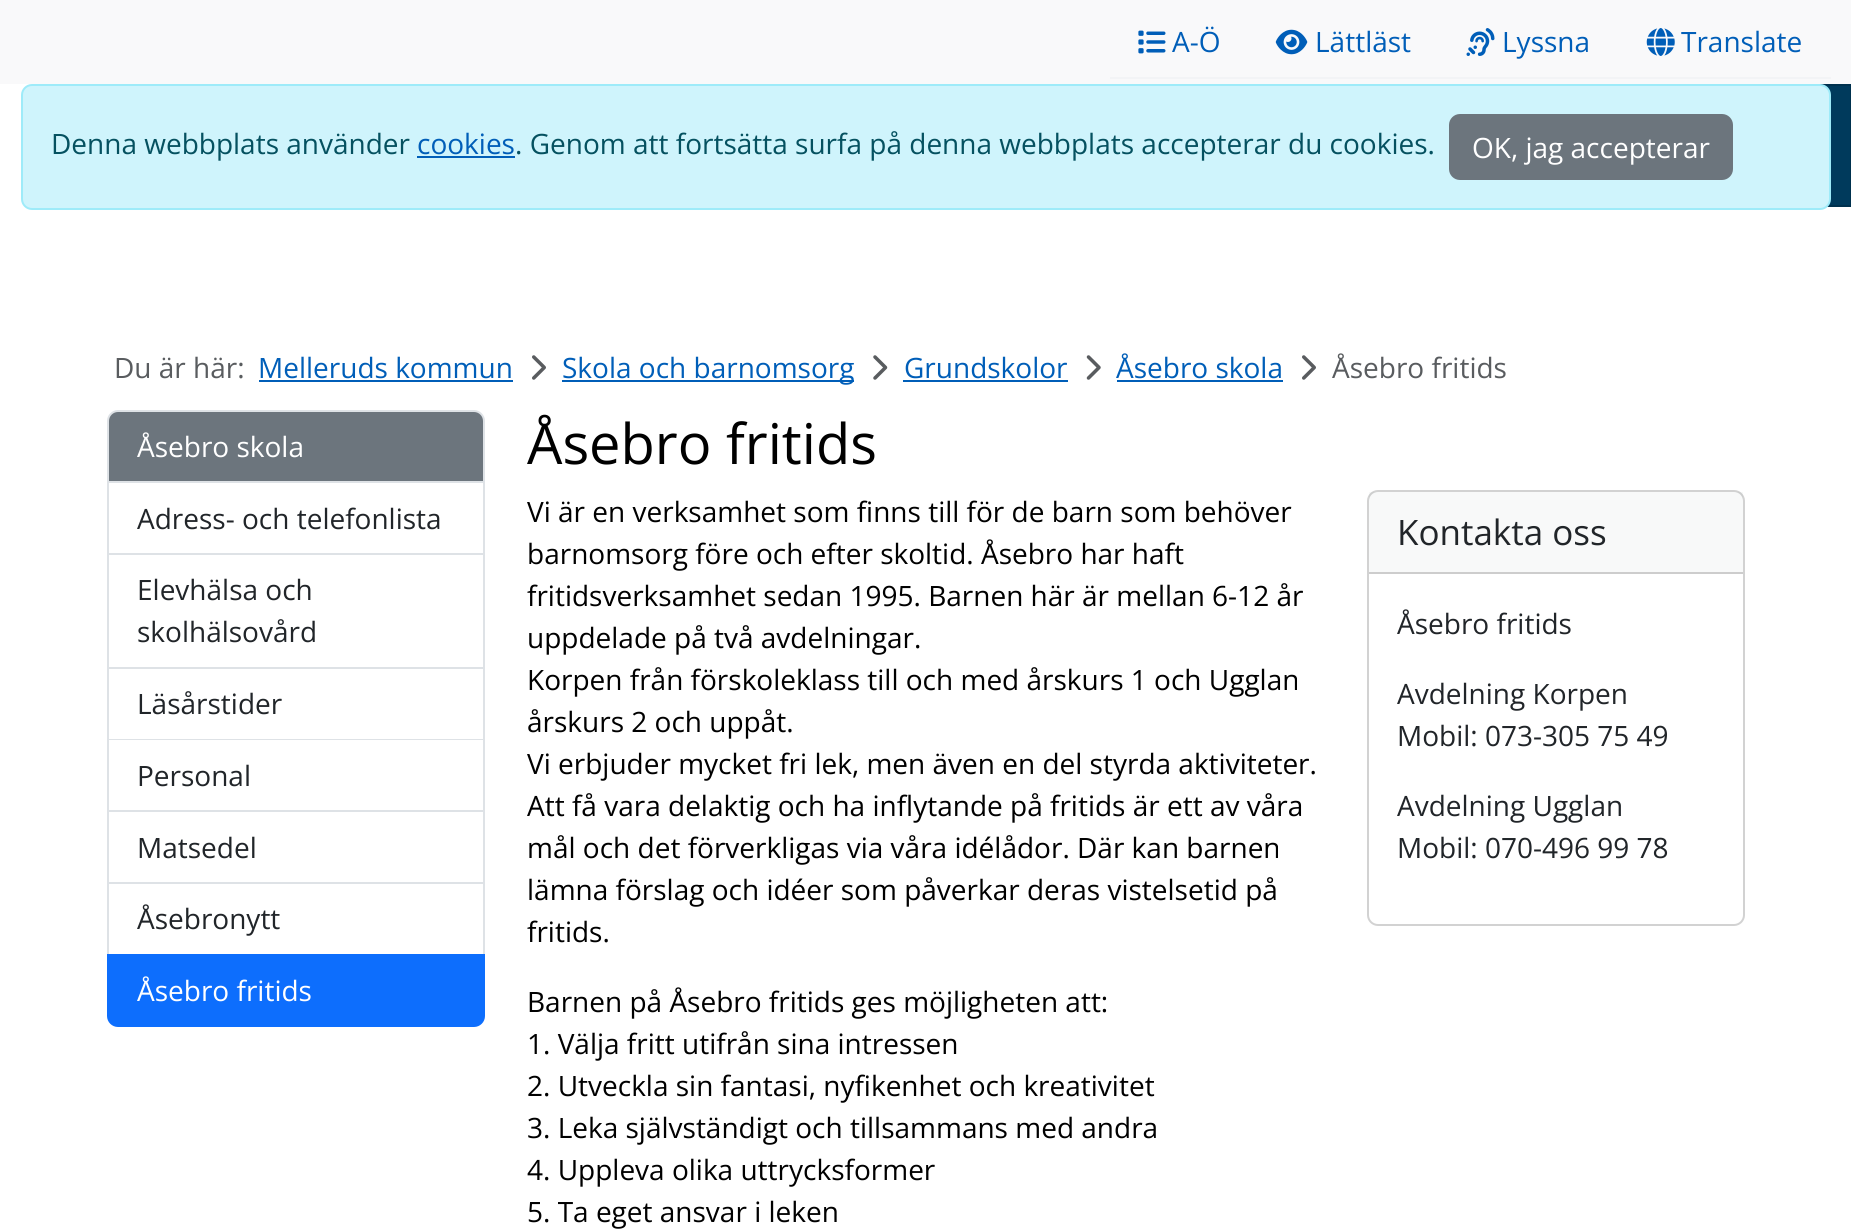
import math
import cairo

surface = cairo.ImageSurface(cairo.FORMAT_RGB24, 1851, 1232)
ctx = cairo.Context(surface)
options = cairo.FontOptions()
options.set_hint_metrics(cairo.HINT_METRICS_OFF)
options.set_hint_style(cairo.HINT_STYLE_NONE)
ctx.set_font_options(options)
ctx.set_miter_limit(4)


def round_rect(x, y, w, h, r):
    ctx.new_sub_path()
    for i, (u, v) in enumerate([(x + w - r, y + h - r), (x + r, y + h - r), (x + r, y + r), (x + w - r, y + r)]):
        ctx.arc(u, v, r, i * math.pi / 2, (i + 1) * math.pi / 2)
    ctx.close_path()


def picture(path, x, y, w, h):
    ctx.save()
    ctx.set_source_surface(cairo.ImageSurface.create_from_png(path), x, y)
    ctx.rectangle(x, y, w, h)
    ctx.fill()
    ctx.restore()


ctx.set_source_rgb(1, 1, 1)
ctx.paint()
ctx.set_source_rgb(0.973, 0.976, 0.98)
ctx.rectangle(0, 0, 1851, 84)
ctx.fill()
ctx.set_source_rgb(0.953, 0.957, 0.961)
ctx.rectangle(1110, 77, 721, 2)
ctx.fill()
picture("img1.png", 1138, 30, 28, 24)
ctx.select_font_face("Open Sans")
ctx.set_font_size(28)
ctx.set_source_rgb(0, 0.369, 0.722)
ctx.move_to(1172, 52)
ctx.show_text("A-Ö")
picture("img2.png", 1275, 29, 33, 26)
ctx.move_to(1315, 52)
ctx.show_text("Lättläst")
picture("img3.png", 1466, 28, 29, 28)
ctx.move_to(1502, 52)
ctx.show_text("Lyssna")
picture("img4.png", 1646, 28, 29, 28)
ctx.move_to(1681, 52)
ctx.show_text("Translate")
ctx.set_source_rgb(0, 0.227, 0.361)
ctx.rectangle(1826, 86, 24, 119)
ctx.fill()
ctx.rectangle(1678, 85, 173, 121)
ctx.set_source_rgb(0, 0.192, 0.306)
ctx.stroke()
ctx.set_source_rgb(0.812, 0.957, 0.988)
round_rect(22, 85, 1808, 124, 10)
ctx.fill_preserve()
ctx.set_source_rgb(0.62, 0.918, 0.976)
ctx.stroke()
ctx.set_source_rgb(0.02, 0.318, 0.376)
ctx.move_to(51, 154)
ctx.show_text("Denna webbplats använder")
ctx.set_source_rgb(0, 0.369, 0.722)
ctx.move_to(417, 154)
ctx.show_text("cookies")
ctx.set_source_rgb(0.02, 0.318, 0.376)
ctx.move_to(515, 154)
ctx.show_text(". Genom att fortsätta surfa på denna webbplats accepterar du cookies.")
ctx.set_source_rgb(0, 0.369, 0.722)
ctx.rectangle(417, 156, 98, 2)
ctx.fill()
ctx.set_source_rgb(0.424, 0.459, 0.49)
round_rect(1450, 115, 282, 64, 10)
ctx.fill_preserve()
ctx.stroke()
ctx.set_source_rgb(1, 1, 1)
ctx.move_to(1472, 158)
ctx.show_text("OK, jag accepterar")
ctx.set_source_rgb(0.349, 0.361, 0.373)
ctx.move_to(114, 378)
ctx.show_text("Du är här:")
ctx.set_source_rgb(0, 0.369, 0.722)
ctx.move_to(258, 378)
ctx.show_text("Melleruds kommun")
ctx.rectangle(259, 380, 254, 2)
ctx.fill()
picture("img5.png", 532, 355, 14, 25)
ctx.rectangle(562, 380, 292, 2)
ctx.fill()
ctx.move_to(562, 378)
ctx.show_text("Skola och barnomsorg")
picture("img6.png", 873, 355, 15, 25)
ctx.move_to(904, 378)
ctx.show_text("Grundskolor")
ctx.rectangle(903, 380, 165, 2)
ctx.fill()
picture("img7.png", 1086, 355, 15, 25)
ctx.move_to(1116, 378)
ctx.show_text("Åsebro skola")
ctx.rectangle(1117, 380, 166, 2)
ctx.fill()
picture("img5.png", 1302, 355, 14, 25)
ctx.set_source_rgb(0.349, 0.361, 0.373)
ctx.move_to(1332, 378)
ctx.show_text("Åsebro fritids")
ctx.set_source_rgb(0.424, 0.459, 0.49)
ctx.new_path()
ctx.move_to(118, 411)
ctx.line_to(474, 411)
ctx.curve_to(479.5, 411, 484, 415.5, 484, 421)
ctx.line_to(484, 482)
ctx.line_to(108, 482)
ctx.line_to(108, 421)
ctx.curve_to(108, 415.5, 112.5, 411, 118, 411)
ctx.close_path()
ctx.fill_preserve()
ctx.set_source_rgb(0.871, 0.886, 0.902)
ctx.stroke()
ctx.set_source_rgb(1, 1, 1)
ctx.move_to(137, 457)
ctx.show_text("Åsebro skola")
ctx.set_source_rgb(0.871, 0.886, 0.902)
ctx.rectangle(483, 483, 2, 473)
ctx.fill()
ctx.rectangle(107, 553, 378, 2)
ctx.fill()
ctx.rectangle(107, 483, 2, 72)
ctx.fill()
ctx.set_source_rgb(0.129, 0.145, 0.161)
ctx.move_to(137, 529)
ctx.show_text("Adress- och telefonlista")
ctx.set_source_rgb(0.871, 0.886, 0.902)
ctx.rectangle(107, 667, 378, 2)
ctx.fill()
ctx.rectangle(107, 555, 2, 114)
ctx.fill()
ctx.set_source_rgb(0.129, 0.145, 0.161)
ctx.move_to(137, 600)
ctx.show_text("Elevhälsa och")
ctx.move_to(137, 642)
ctx.show_text("skolhälsovård")
ctx.set_source_rgb(0.871, 0.886, 0.902)
ctx.rectangle(107, 739, 378, 1)
ctx.fill()
ctx.rectangle(107, 669, 2, 71)
ctx.fill()
ctx.set_source_rgb(0.129, 0.145, 0.161)
ctx.move_to(137, 714)
ctx.show_text("Läsårstider")
ctx.set_source_rgb(0.871, 0.886, 0.902)
ctx.rectangle(107, 810, 378, 2)
ctx.fill()
ctx.rectangle(107, 740, 2, 72)
ctx.fill()
ctx.set_source_rgb(0.129, 0.145, 0.161)
ctx.move_to(137, 786)
ctx.show_text("Personal")
ctx.set_source_rgb(0.871, 0.886, 0.902)
ctx.rectangle(107, 882, 378, 2)
ctx.fill()
ctx.rectangle(107, 812, 2, 144)
ctx.fill()
ctx.set_source_rgb(0.129, 0.145, 0.161)
ctx.move_to(137, 858)
ctx.show_text("Matsedel")
ctx.move_to(137, 929)
ctx.show_text("Åsebronytt")
ctx.set_source_rgb(0.051, 0.431, 0.992)
ctx.new_path()
ctx.move_to(108, 955)
ctx.line_to(484, 955)
ctx.line_to(484, 1016)
ctx.curve_to(484, 1021.5, 479.5, 1026, 474, 1026)
ctx.line_to(118, 1026)
ctx.curve_to(112.5, 1026, 108, 1021.5, 108, 1016)
ctx.close_path()
ctx.fill_preserve()
ctx.stroke()
ctx.set_source_rgb(1, 1, 1)
ctx.move_to(137, 1001)
ctx.show_text("Åsebro fritids")
ctx.set_font_size(56)
ctx.set_source_rgb(0, 0, 0)
ctx.move_to(527, 464)
ctx.show_text("Åsebro fritids")
ctx.set_font_size(28)
ctx.move_to(527, 522)
ctx.show_text("Vi är en verksamhet som finns till för de barn som behöver")
ctx.move_to(527, 564)
ctx.show_text("barnomsorg före och efter skoltid. Åsebro har haft")
ctx.move_to(527, 606)
ctx.show_text("fritidsverksamhet sedan 1995. Barnen här är mellan 6-12 år")
ctx.move_to(527, 648)
ctx.show_text("uppdelade på två avdelningar.")
ctx.move_to(527, 690)
ctx.show_text("Korpen från förskoleklass till och med årskurs 1 och Ugglan")
ctx.move_to(527, 732)
ctx.show_text("årskurs 2 och uppåt.")
ctx.move_to(527, 774)
ctx.show_text("Vi erbjuder mycket fri lek, men även en del styrda aktiviteter.")
ctx.move_to(527, 816)
ctx.show_text("Att få vara delaktig och ha inflytande på fritids är ett av våra")
ctx.move_to(527, 858)
ctx.show_text("mål och det förverkligas via våra idélådor. Där kan barnen")
ctx.move_to(527, 900)
ctx.show_text("lämna förslag och idéer som påverkar deras vistelsetid på")
ctx.move_to(527, 942)
ctx.show_text("fritids.")
ctx.move_to(527, 1012)
ctx.show_text("Barnen på Åsebro fritids ges möjligheten att:")
ctx.move_to(527, 1054)
ctx.show_text("1. Välja fritt utifrån sina intressen")
ctx.move_to(527, 1096)
ctx.show_text("2. Utveckla sin fantasi, nyfikenhet och kreativitet")
ctx.move_to(527, 1138)
ctx.show_text("3. Leka självständigt och tillsammans med andra")
ctx.move_to(527, 1180)
ctx.show_text("4. Uppleva olika uttrycksformer")
ctx.move_to(527, 1222)
ctx.show_text("5. Ta eget ansvar i leken")
round_rect(1368, 491, 376, 434, 10)
ctx.set_source_rgb(0.824, 0.824, 0.824)
ctx.stroke()
ctx.set_source_rgba(0.129, 0.145, 0.161, 0.03)
ctx.rectangle(1369, 492, 374, 80)
ctx.fill()
ctx.set_source_rgb(0.804, 0.804, 0.804)
ctx.rectangle(1369, 572, 374, 2)
ctx.fill()
ctx.set_font_size(35)
ctx.set_source_rgb(0.129, 0.145, 0.161)
ctx.move_to(1397, 545)
ctx.show_text("Kontakta oss")
ctx.set_font_size(28)
ctx.move_to(1397, 634)
ctx.show_text("Åsebro fritids")
ctx.move_to(1397, 704)
ctx.show_text("Avdelning Korpen")
ctx.move_to(1397, 746)
ctx.show_text("Mobil: 073-305 75 49")
ctx.move_to(1397, 816)
ctx.show_text("Avdelning Ugglan")
ctx.move_to(1397, 858)
ctx.show_text("Mobil: 070-496 99 78")
surface.write_to_png("page.png")
